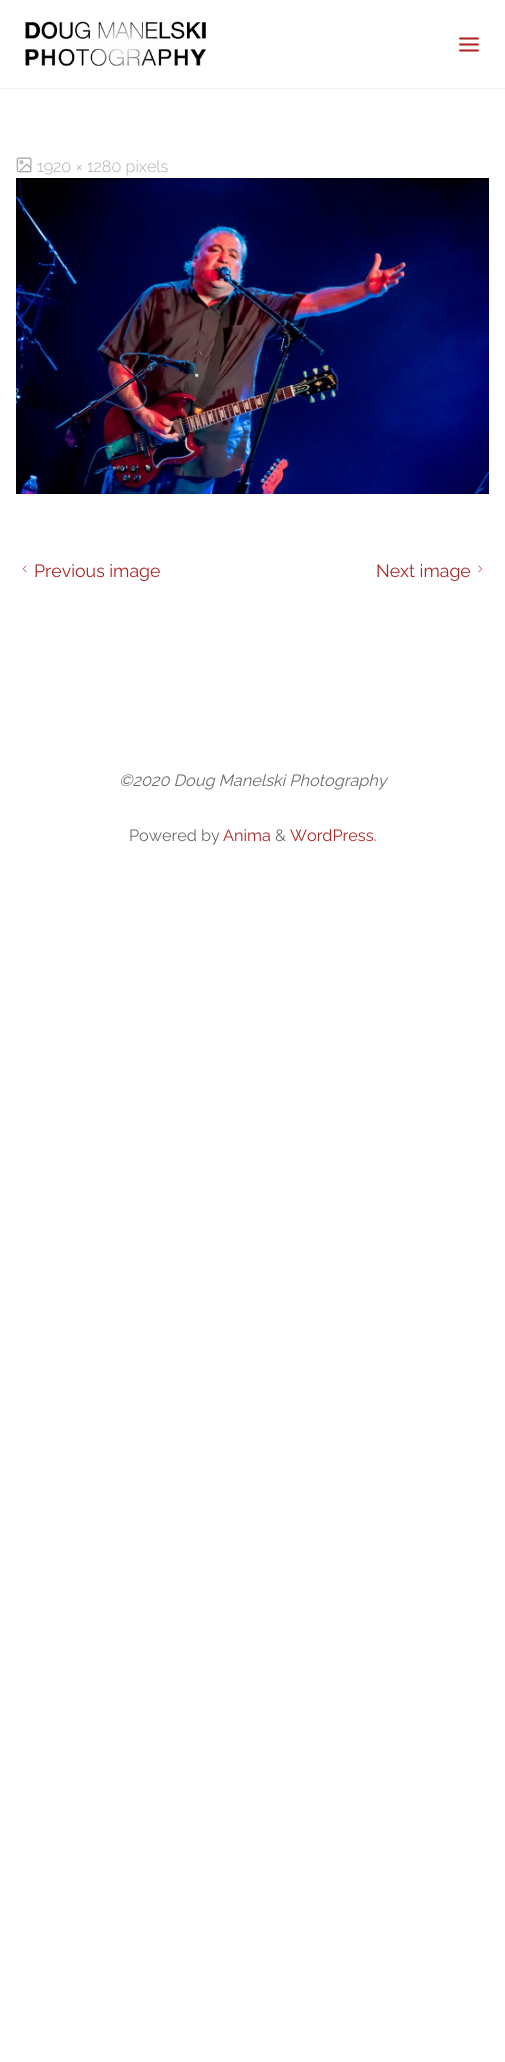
import math
import cairo

surface = cairo.ImageSurface(cairo.FORMAT_RGB24, 505, 2062)
ctx = cairo.Context(surface)
options = cairo.FontOptions()
options.set_hint_metrics(cairo.HINT_METRICS_OFF)
options.set_hint_style(cairo.HINT_STYLE_NONE)
ctx.set_font_options(options)
ctx.set_miter_limit(4)


def picture(path, x, y, w, h):
    ctx.save()
    ctx.set_source_surface(cairo.ImageSurface.create_from_png(path), x, y)
    ctx.rectangle(x, y, w, h)
    ctx.fill()
    ctx.restore()


ctx.set_source_rgb(1, 1, 1)
ctx.paint()
ctx.set_source_rgb(0.949, 0.949, 0.949)
ctx.rectangle(0, 88, 505, 1)
ctx.fill()
picture("img1.png", 25, 21, 181, 45)
picture("img2.png", 459, 37, 20, 15)
picture("img3.png", 16, 157, 16, 16)
ctx.select_font_face("Raleway Light")
ctx.set_font_size(16.25)
ctx.set_source_rgb(0.671, 0.671, 0.671)
ctx.move_to(37, 172)
ctx.show_text("1920 × 1280 pixels")
picture("img4.png", 16, 178, 473, 316)
picture("img5.png", 22, 565, 5, 8)
ctx.select_font_face("Raleway")
ctx.set_font_size(17.75)
ctx.set_source_rgb(0.686, 0.141, 0.141)
ctx.move_to(34, 577)
ctx.show_text("Previous image")
ctx.move_to(376, 577)
ctx.show_text("Next image")
picture("img6.png", 478, 565, 4, 8)
ctx.select_font_face("Raleway", cairo.FONT_SLANT_ITALIC)
ctx.set_font_size(16.25)
ctx.set_source_rgb(0.42, 0.42, 0.42)
ctx.move_to(119, 786)
ctx.show_text("©2020 Doug Manelski Photography")
ctx.select_font_face("Raleway")
ctx.move_to(129, 841)
ctx.show_text("Powered by")
ctx.set_source_rgb(0.686, 0.141, 0.141)
ctx.move_to(223, 841)
ctx.show_text("Anima")
ctx.set_source_rgb(0.42, 0.42, 0.42)
ctx.move_to(275, 841)
ctx.show_text("&")
ctx.set_source_rgb(0.686, 0.141, 0.141)
ctx.move_to(290, 841)
ctx.show_text("WordPress.")
surface.write_to_png("page.png")
